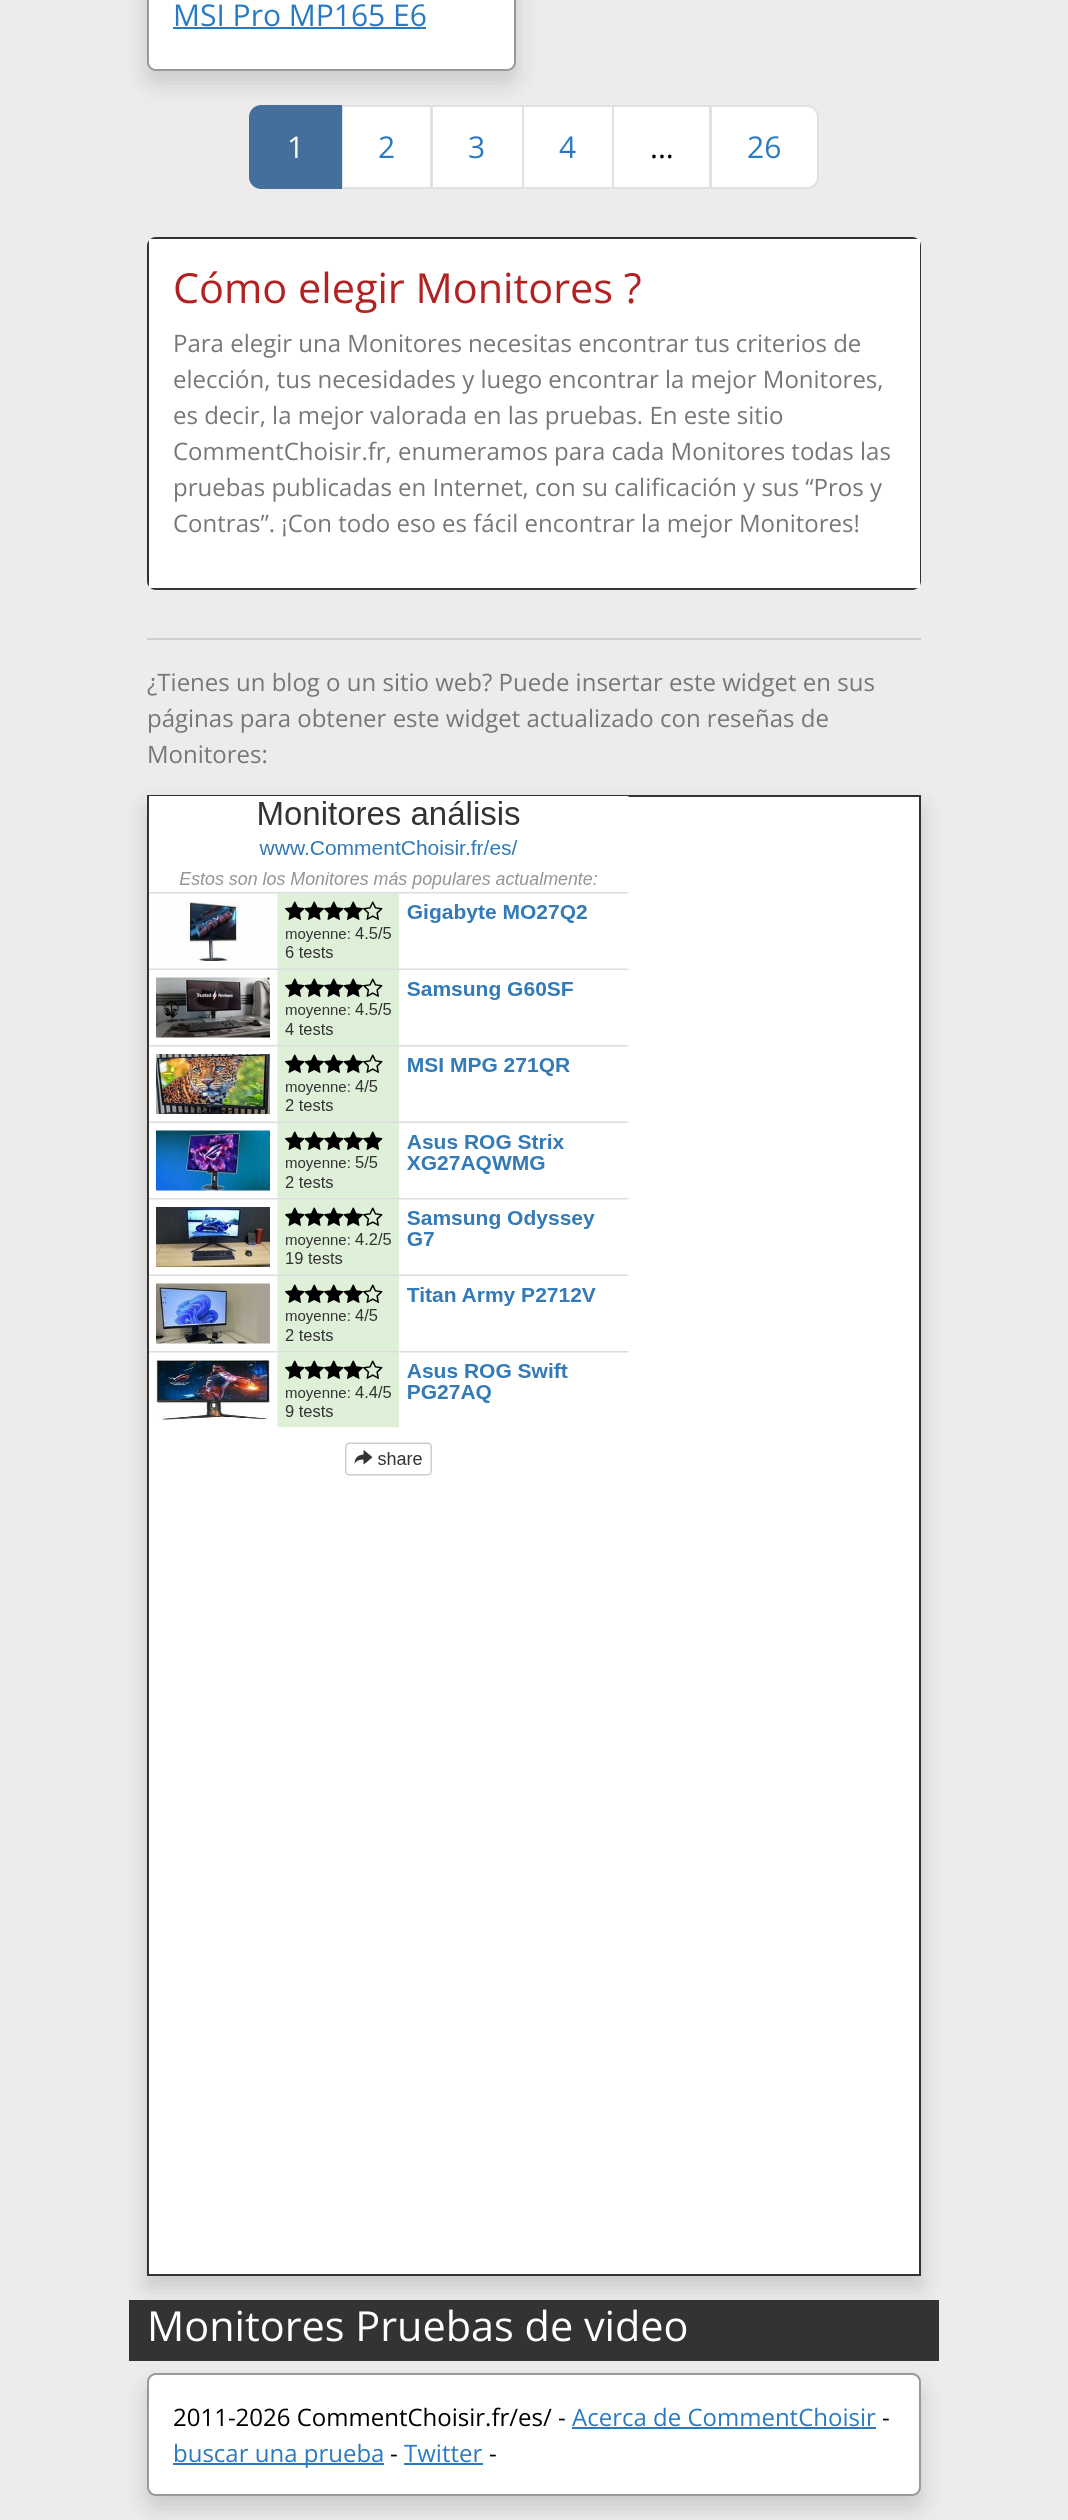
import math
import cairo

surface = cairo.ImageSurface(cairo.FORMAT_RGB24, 1068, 2520)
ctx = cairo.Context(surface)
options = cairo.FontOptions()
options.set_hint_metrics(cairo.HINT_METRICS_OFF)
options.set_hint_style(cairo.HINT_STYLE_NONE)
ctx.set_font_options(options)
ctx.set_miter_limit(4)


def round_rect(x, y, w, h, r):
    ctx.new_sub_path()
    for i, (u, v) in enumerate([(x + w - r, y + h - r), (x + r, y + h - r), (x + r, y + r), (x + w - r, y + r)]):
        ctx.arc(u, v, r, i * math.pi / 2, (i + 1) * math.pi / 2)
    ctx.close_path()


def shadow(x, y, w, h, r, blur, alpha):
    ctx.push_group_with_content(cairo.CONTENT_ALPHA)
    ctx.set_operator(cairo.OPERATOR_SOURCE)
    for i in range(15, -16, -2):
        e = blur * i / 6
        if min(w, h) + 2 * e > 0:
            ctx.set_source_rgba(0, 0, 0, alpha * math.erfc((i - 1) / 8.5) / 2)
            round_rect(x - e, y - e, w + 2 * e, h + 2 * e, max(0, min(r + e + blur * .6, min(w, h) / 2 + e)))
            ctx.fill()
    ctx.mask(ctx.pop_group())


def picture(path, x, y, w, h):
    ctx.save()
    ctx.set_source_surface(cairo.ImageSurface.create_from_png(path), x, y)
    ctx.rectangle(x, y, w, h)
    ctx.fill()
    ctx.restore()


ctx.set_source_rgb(0.933, 0.918, 0.918)
ctx.paint()
ctx.set_source_rgb(0, 0, 0)
shadow(147, -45, 369, 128, 9, 12, 0.15)
ctx.set_source_rgb(1, 1, 1)
round_rect(148, -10, 367, 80, 8)
ctx.fill_preserve()
ctx.set_source_rgb(0.6, 0.6, 0.6)
ctx.stroke()
ctx.select_font_face("Open Sans")
ctx.set_font_size(30)
ctx.set_source_rgb(0.161, 0.478, 0.761)
ctx.move_to(173, 26)
ctx.show_text("MSI Pro MP165 E6")
ctx.rectangle(173, 27, 253, 2)
ctx.fill()
ctx.set_source_rgb(1, 1, 1)
ctx.rectangle(342, 106, 89, 82)
ctx.fill_preserve()
ctx.set_source_rgb(0.871, 0.886, 0.902)
ctx.stroke()
ctx.set_source_rgb(0.267, 0.431, 0.608)
ctx.new_path()
ctx.move_to(261, 106)
ctx.line_to(341, 106)
ctx.line_to(341, 188)
ctx.line_to(261, 188)
ctx.curve_to(255, 188, 250, 183, 250, 177)
ctx.line_to(250, 117)
ctx.curve_to(250, 111, 255, 106, 261, 106)
ctx.close_path()
ctx.fill_preserve()
ctx.stroke()
ctx.set_source_rgb(1, 1, 1)
ctx.move_to(287, 158)
ctx.show_text("1")
ctx.set_source_rgb(0.161, 0.478, 0.761)
ctx.move_to(378, 158)
ctx.show_text("2")
ctx.set_source_rgb(1, 1, 1)
ctx.rectangle(432, 106, 91, 82)
ctx.fill_preserve()
ctx.set_source_rgb(0.871, 0.886, 0.902)
ctx.stroke()
ctx.set_source_rgb(0.161, 0.478, 0.761)
ctx.move_to(468, 158)
ctx.show_text("3")
ctx.set_source_rgb(1, 1, 1)
ctx.rectangle(523, 106, 90, 82)
ctx.fill_preserve()
ctx.set_source_rgb(0.871, 0.886, 0.902)
ctx.stroke()
ctx.set_source_rgb(0.161, 0.478, 0.761)
ctx.move_to(559, 158)
ctx.show_text("4")
ctx.set_source_rgb(1, 1, 1)
ctx.rectangle(613, 106, 97, 82)
ctx.fill_preserve()
ctx.set_source_rgb(0.871, 0.886, 0.902)
ctx.stroke()
ctx.set_source_rgb(0, 0, 0)
ctx.move_to(650, 158)
ctx.show_text("...")
ctx.set_source_rgb(1, 1, 1)
ctx.new_path()
ctx.move_to(711, 106)
ctx.line_to(807, 106)
ctx.curve_to(813, 106, 818, 111, 818, 117)
ctx.line_to(818, 177)
ctx.curve_to(818, 183, 813, 188, 807, 188)
ctx.line_to(711, 188)
ctx.close_path()
ctx.fill_preserve()
ctx.set_source_rgb(0.871, 0.886, 0.902)
ctx.stroke()
ctx.set_source_rgb(0.161, 0.478, 0.761)
ctx.move_to(747, 158)
ctx.show_text("26")
round_rect(148, 238, 772, 351, 8)
ctx.set_source_rgb(0.2, 0.2, 0.2)
ctx.stroke()
ctx.set_source_rgb(1, 1, 1)
ctx.rectangle(149, 239, 771, 349)
ctx.fill()
ctx.set_font_size(41.4)
ctx.set_source_rgb(0.698, 0.133, 0.133)
ctx.move_to(173, 303)
ctx.show_text("Cómo elegir Monitores ?")
ctx.set_font_size(24)
ctx.set_source_rgb(0.467, 0.467, 0.467)
ctx.move_to(173, 352)
ctx.show_text("Para elegir una Monitores necesitas encontrar tus criterios de")
ctx.move_to(173, 388)
ctx.show_text("elección, tus necesidades y luego encontrar la mejor Monitores,")
ctx.move_to(173, 424)
ctx.show_text("es decir, la mejor valorada en las pruebas. En este sitio")
ctx.move_to(173, 460)
ctx.show_text("CommentChoisir.fr, enumeramos para cada Monitores todas las")
ctx.move_to(173, 496)
ctx.show_text("pruebas publicadas en Internet, con su calificación y sus “Pros y")
ctx.move_to(173, 532)
ctx.show_text("Contras”. ¡Con todo eso es fácil encontrar la mejor Monitores!")
ctx.set_source_rgb(0.816, 0.804, 0.804)
ctx.rectangle(147, 638, 774, 2)
ctx.fill()
ctx.set_source_rgb(0.467, 0.467, 0.467)
ctx.move_to(147, 691)
ctx.show_text("¿Tienes un blog o un sitio web? Puede insertar este widget en sus")
ctx.move_to(147, 727)
ctx.show_text("páginas para obtener este widget actualizado con reseñas de")
ctx.move_to(147, 763)
ctx.show_text("Monitores:")
ctx.set_source_rgb(0.2, 0.2, 0.2)
ctx.rectangle(129, 2300, 810, 61)
ctx.fill()
ctx.set_source_rgb(0, 0, 0)
shadow(147, 807, 774, 1481, 0, 12, 0.15)
ctx.set_source_rgb(1, 1, 1)
ctx.rectangle(148, 796, 772, 1479)
ctx.fill_preserve()
ctx.set_source_rgb(0.2, 0.2, 0.2)
ctx.stroke()
picture("img1.png", 149, 796, 480, 680)
ctx.set_font_size(41.4)
ctx.set_source_rgb(1, 1, 1)
ctx.move_to(147, 2341)
ctx.show_text("Monitores Pruebas de video")
ctx.set_source_rgb(0, 0, 0)
shadow(147, 2385, 774, 123, 9, 12, 0.15)
ctx.set_source_rgb(1, 1, 1)
round_rect(148, 2374, 772, 121, 8)
ctx.fill_preserve()
ctx.set_source_rgb(0.6, 0.6, 0.6)
ctx.stroke()
ctx.set_font_size(24)
ctx.set_source_rgb(0, 0, 0)
ctx.move_to(173, 2426)
ctx.show_text("2011-2026 CommentChoisir.fr/es/ -")
ctx.set_source_rgb(0.161, 0.478, 0.761)
ctx.move_to(572, 2426)
ctx.show_text("Acerca de CommentChoisir")
ctx.rectangle(572, 2427, 304, 2)
ctx.fill()
ctx.set_source_rgb(0, 0, 0)
ctx.move_to(882, 2426)
ctx.show_text("-")
ctx.set_source_rgb(0.161, 0.478, 0.761)
ctx.rectangle(173, 2463, 211, 2)
ctx.fill()
ctx.move_to(173, 2462)
ctx.show_text("buscar una prueba")
ctx.set_source_rgb(0, 0, 0)
ctx.move_to(390, 2462)
ctx.show_text("-")
ctx.set_source_rgb(0.161, 0.478, 0.761)
ctx.move_to(404, 2462)
ctx.show_text("Twitter")
ctx.rectangle(404, 2463, 79, 2)
ctx.fill()
ctx.set_source_rgb(0, 0, 0)
ctx.move_to(489, 2462)
ctx.show_text("-")
surface.write_to_png("page.png")
